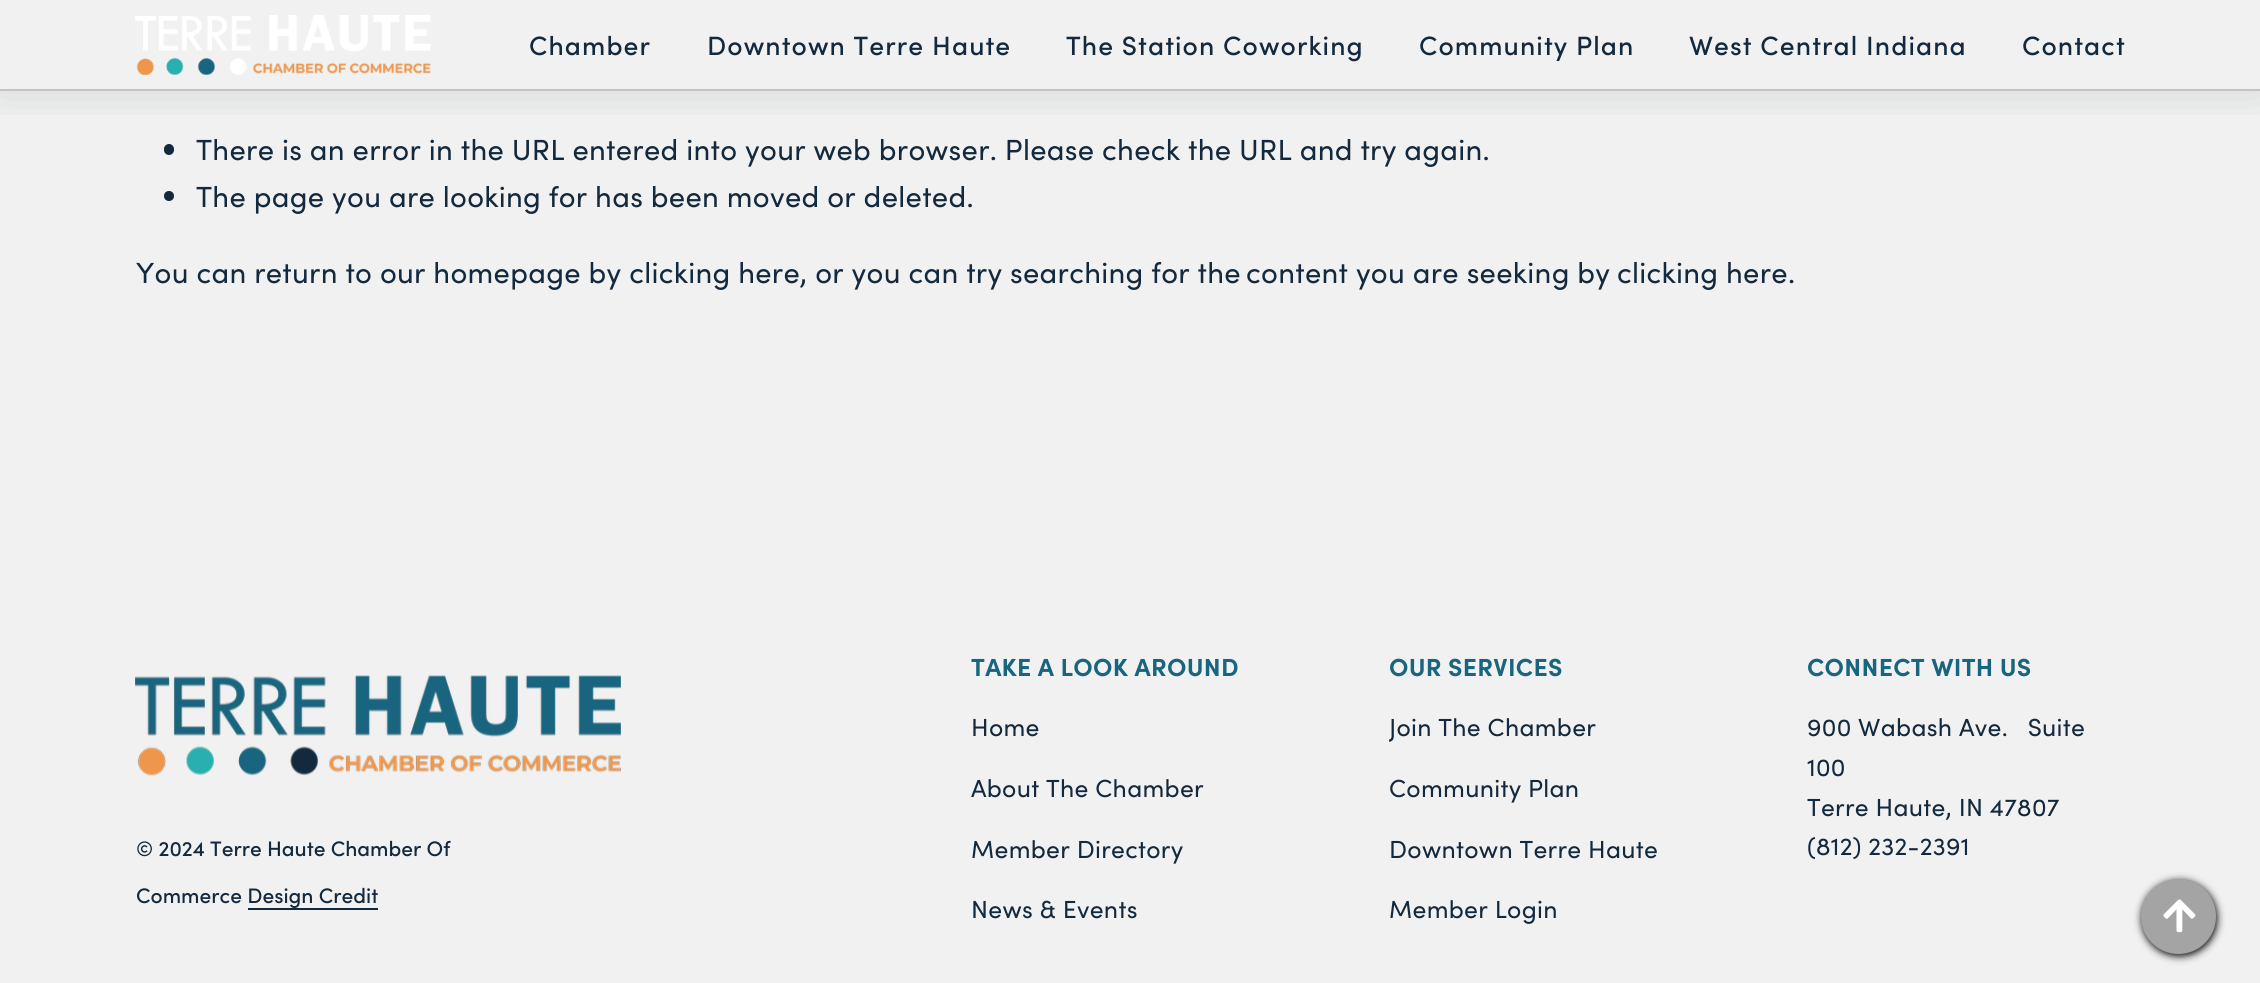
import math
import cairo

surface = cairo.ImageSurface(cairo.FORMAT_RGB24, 2260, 983)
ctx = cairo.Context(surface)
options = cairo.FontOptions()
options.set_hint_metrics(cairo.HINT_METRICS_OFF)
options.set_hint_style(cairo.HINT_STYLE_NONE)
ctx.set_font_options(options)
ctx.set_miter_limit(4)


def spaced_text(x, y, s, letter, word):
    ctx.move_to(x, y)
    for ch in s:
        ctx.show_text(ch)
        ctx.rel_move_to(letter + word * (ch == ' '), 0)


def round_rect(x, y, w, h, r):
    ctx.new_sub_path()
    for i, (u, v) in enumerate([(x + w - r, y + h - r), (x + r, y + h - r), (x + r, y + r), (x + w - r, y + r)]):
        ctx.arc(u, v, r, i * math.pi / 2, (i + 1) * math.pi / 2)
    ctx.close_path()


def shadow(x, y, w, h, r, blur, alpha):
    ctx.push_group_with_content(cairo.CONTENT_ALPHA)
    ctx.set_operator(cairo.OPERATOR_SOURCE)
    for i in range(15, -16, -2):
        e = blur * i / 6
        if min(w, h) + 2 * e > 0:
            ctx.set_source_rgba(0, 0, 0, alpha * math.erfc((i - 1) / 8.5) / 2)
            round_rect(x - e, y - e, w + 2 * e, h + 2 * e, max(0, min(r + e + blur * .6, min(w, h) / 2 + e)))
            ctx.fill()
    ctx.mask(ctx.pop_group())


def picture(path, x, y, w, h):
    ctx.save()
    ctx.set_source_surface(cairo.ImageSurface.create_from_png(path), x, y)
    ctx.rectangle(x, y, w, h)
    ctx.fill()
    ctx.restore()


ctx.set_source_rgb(0.945, 0.945, 0.945)
ctx.paint()
ctx.set_source_rgb(0.075, 0.161, 0.239)
round_rect(164, 144, 10, 11, 5)
ctx.fill()
ctx.save()
ctx.rectangle(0, 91, 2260, 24)
ctx.clip()
ctx.set_source_rgb(0.075, 0.161, 0.239)
shadow(0, 0, 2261, 90, 0, 22.5, 0.15)
ctx.restore()
picture("img1.png", 135, 15, 296, 60)
ctx.select_font_face("Sofia Medium")
ctx.set_font_size(26.5)
spaced_text(529, 55, "Chamber", 1.1, 0)
spaced_text(707, 55, "Downtown Terre Haute", 1.1, 0)
spaced_text(1066, 55, "The Station Coworking", 1.1, 0)
spaced_text(1419, 55, "Community Plan", 1.1, 0)
spaced_text(1689, 55, "West Central Indiana", 1.1, 0)
spaced_text(2022, 55, "Contact", 1.1, 0)
ctx.set_source_rgb(0.765, 0.765, 0.765)
ctx.rectangle(0, 89, 2260, 2)
ctx.fill()
ctx.select_font_face("Sofia")
ctx.set_font_size(29.15)
ctx.set_source_rgb(0.075, 0.161, 0.239)
spaced_text(196, 160, "There is an error in the URL entered into your web browser. Please check the URL and try again.", 0.3, 0)
ctx.new_path()
ctx.arc(169, 196, 5, 0, 2 * math.pi)
ctx.fill()
spaced_text(196, 207, "The page you are looking for has been moved or deleted.", 0.3, 0)
spaced_text(136, 283, "You can return to our homepage by clicking here, or you can try searching for the", 0.3, 0)
spaced_text(1246, 283, "content you are seeking by", 0.3, 0)
spaced_text(1617, 283, "clicking here.", 0.3, 0)
picture("img2.png", 135, 675, 486, 101)
ctx.select_font_face("Sofia", cairo.FONT_SLANT_NORMAL, cairo.FONT_WEIGHT_BOLD)
ctx.set_font_size(24.75)
ctx.set_source_rgb(0.098, 0.392, 0.494)
spaced_text(971, 676, "TAKE A LOOK AROUND", 0.3, 0)
ctx.select_font_face("Sofia")
ctx.set_source_rgb(0.075, 0.161, 0.239)
spaced_text(971, 736, "Home", 0.3, 0)
spaced_text(971, 797, "About The Chamber", 0.3, 0)
spaced_text(971, 858, "Member Directory", 0.3, 0)
spaced_text(971, 918, "News & Events", 0.3, 0)
ctx.select_font_face("Sofia", cairo.FONT_SLANT_NORMAL, cairo.FONT_WEIGHT_BOLD)
ctx.set_source_rgb(0.098, 0.392, 0.494)
spaced_text(1389, 676, "OUR SERVICES", 0.3, 0)
ctx.save()
ctx.new_path()
ctx.move_to(1389, 645.5)
ctx.line_to(1707, 645.5)
ctx.line_to(1707, 928)
ctx.line_to(1389, 928)
ctx.close_path()
ctx.clip()
ctx.select_font_face("Sofia")
ctx.set_source_rgb(0.075, 0.161, 0.239)
spaced_text(1389, 736, "Join The Chamber", 0.3, 0)
ctx.restore()
ctx.select_font_face("Sofia")
ctx.set_source_rgb(0.075, 0.161, 0.239)
spaced_text(1389, 797, "Community Plan", 0.3, 0)
spaced_text(1389, 858, "Downtown Terre Haute", 0.3, 0)
spaced_text(1389, 918, "Member Login", 0.3, 0)
ctx.select_font_face("Sofia", cairo.FONT_SLANT_NORMAL, cairo.FONT_WEIGHT_BOLD)
ctx.set_source_rgb(0.098, 0.392, 0.494)
spaced_text(1807, 676, "CONNECT WITH US", 0.3, 0)
ctx.select_font_face("Sofia")
ctx.set_source_rgb(0.075, 0.161, 0.239)
spaced_text(1807, 736, "900 Wabash Ave.   Suite", 0.3, 0)
spaced_text(1807, 776, "100", 0.3, 0)
spaced_text(1807, 816, "Terre Haute, IN 47807", 0.3, 0)
spaced_text(1807, 855, "(812) 232-2391", 0.3, 0)
ctx.select_font_face("Sofia Medium")
ctx.set_font_size(21)
ctx.move_to(136, 856)
ctx.show_text("© 2024 Terre Haute Chamber Of")
ctx.move_to(136, 903)
ctx.show_text("Commerce Design Credit")
ctx.rectangle(248, 908, 130, 2)
ctx.fill()
ctx.set_source_rgb(0, 0, 0)
shadow(2142, 881, 75, 75, 37.5, 4, 1)
ctx.set_source_rgb(0.643, 0.643, 0.643)
ctx.arc(2178.5, 916.5, 37.5, 0, 2 * math.pi)
ctx.fill()
picture("img3.png", 2163, 899, 33, 34)
surface.write_to_png("page.png")
